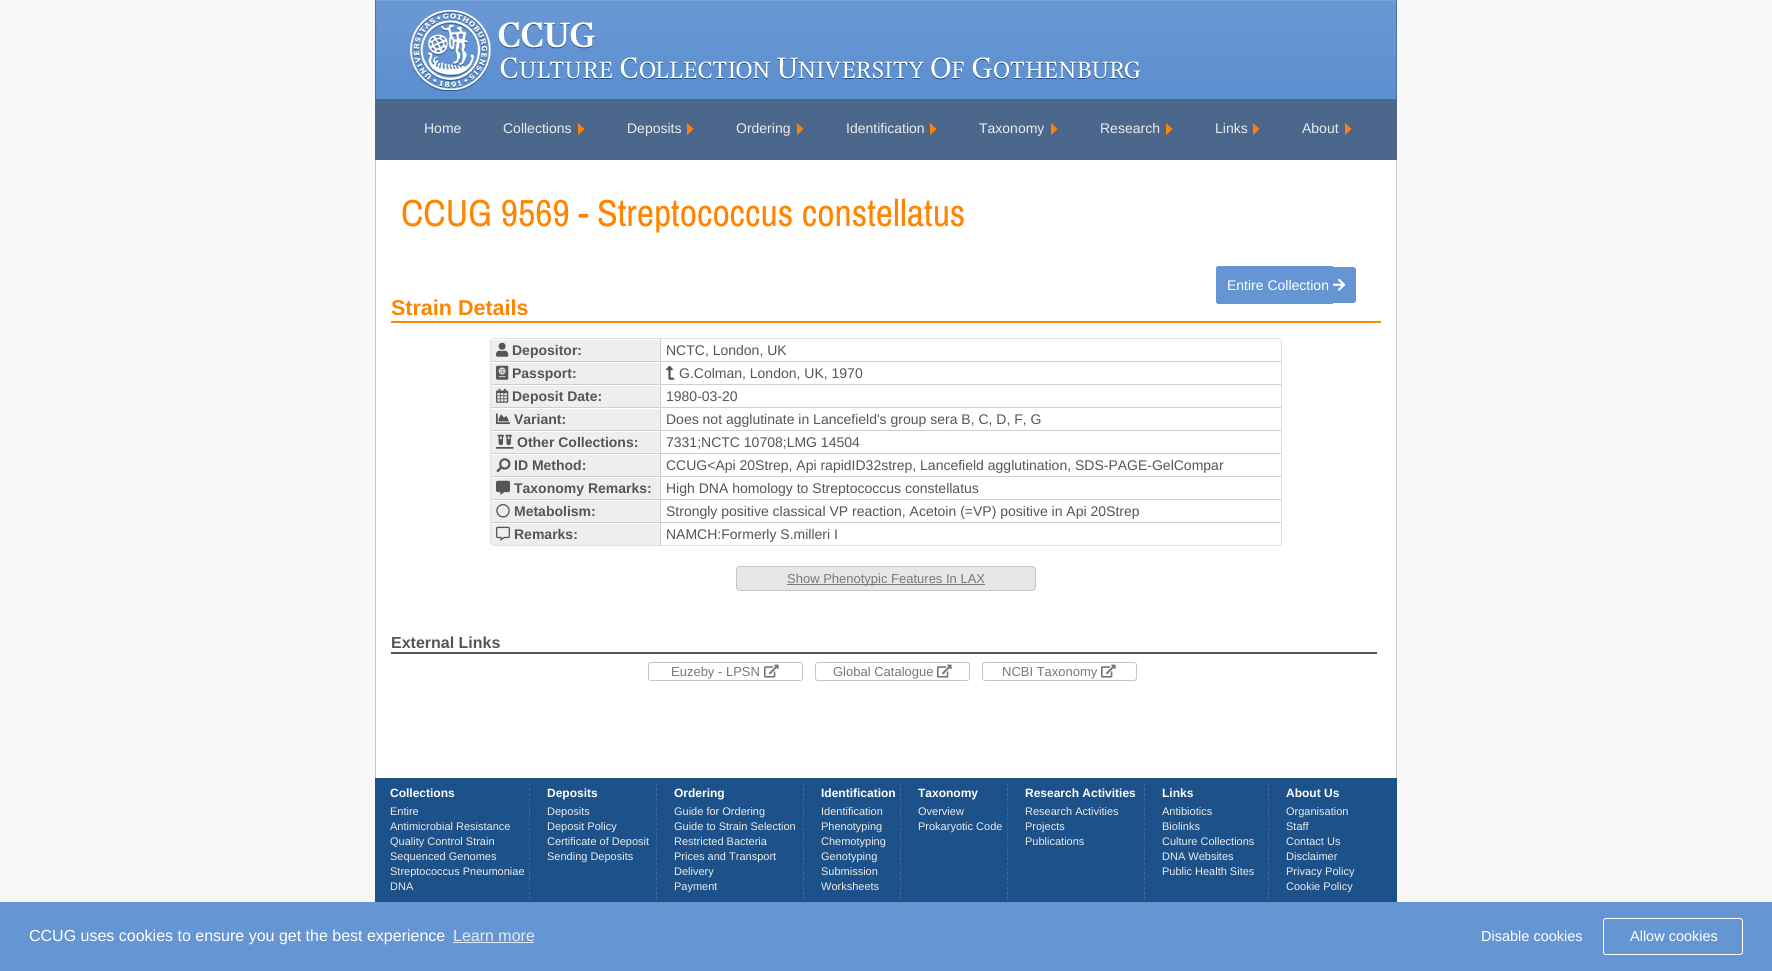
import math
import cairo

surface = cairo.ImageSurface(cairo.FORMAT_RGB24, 1772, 971)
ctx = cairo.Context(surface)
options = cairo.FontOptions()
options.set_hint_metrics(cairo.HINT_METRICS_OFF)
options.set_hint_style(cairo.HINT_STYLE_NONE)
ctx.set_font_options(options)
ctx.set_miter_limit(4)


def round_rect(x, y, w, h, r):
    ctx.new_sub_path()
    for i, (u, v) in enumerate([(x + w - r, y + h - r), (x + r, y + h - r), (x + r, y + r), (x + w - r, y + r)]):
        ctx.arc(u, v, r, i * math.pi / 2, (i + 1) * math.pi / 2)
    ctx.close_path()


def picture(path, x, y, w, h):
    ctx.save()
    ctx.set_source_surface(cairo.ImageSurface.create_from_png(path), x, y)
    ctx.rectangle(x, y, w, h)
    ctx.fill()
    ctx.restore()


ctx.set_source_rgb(0.969, 0.969, 0.969)
ctx.paint()
picture("img1.png", 375, 0, 120, 99)
picture("img2.png", 495, 0, 902, 99)
ctx.set_source_rgb(0.294, 0.404, 0.549)
ctx.rectangle(375, 99, 1022, 61)
ctx.fill()
ctx.select_font_face("Liberation Sans")
ctx.set_font_size(14)
ctx.set_source_rgb(0.922, 0.922, 0.922)
ctx.move_to(424, 133)
ctx.show_text("Home")
picture("img3.png", 578, 123, 7, 12)
ctx.move_to(503, 133)
ctx.show_text("Collections")
picture("img3.png", 687, 123, 7, 12)
ctx.move_to(627, 133)
ctx.show_text("Deposits")
picture("img3.png", 797, 123, 7, 12)
ctx.move_to(736, 133)
ctx.show_text("Ordering")
picture("img3.png", 930, 123, 7, 12)
ctx.move_to(846, 133)
ctx.show_text("Identification")
picture("img3.png", 1051, 123, 7, 12)
ctx.move_to(979, 133)
ctx.show_text("Taxonomy")
picture("img3.png", 1166, 123, 7, 12)
ctx.move_to(1100, 133)
ctx.show_text("Research")
picture("img3.png", 1253, 123, 7, 12)
ctx.move_to(1215, 133)
ctx.show_text("Links")
picture("img3.png", 1345, 123, 7, 12)
ctx.move_to(1302, 133)
ctx.show_text("About")
ctx.set_source_rgb(1, 1, 1)
ctx.rectangle(376, 160, 1020, 618)
ctx.fill()
ctx.set_source_rgb(0.776, 0.776, 0.776)
ctx.rectangle(1396, 160, 1, 618)
ctx.fill()
ctx.rectangle(375, 160, 1, 618)
ctx.fill()
ctx.select_font_face("Archivo Narrow")
ctx.set_font_size(37.75)
ctx.set_source_rgb(1, 0.522, 0)
ctx.move_to(401, 226)
ctx.show_text("CCUG 9569 - Streptococcus constellatus")
ctx.set_source_rgb(0.396, 0.584, 0.827)
ctx.new_path()
ctx.move_to(1219, 266)
ctx.line_to(1333, 266)
ctx.line_to(1333, 304)
ctx.line_to(1219, 304)
ctx.curve_to(1217.5, 304, 1216, 302.5, 1216, 301)
ctx.line_to(1216, 269)
ctx.curve_to(1216, 267.5, 1217.5, 266, 1219, 266)
ctx.close_path()
ctx.fill()
ctx.set_fill_rule(cairo.FILL_RULE_EVEN_ODD)
ctx.new_path()
ctx.move_to(1219, 266)
ctx.line_to(1333, 266)
ctx.line_to(1333, 304)
ctx.line_to(1219, 304)
ctx.curve_to(1217, 304, 1216, 303, 1216, 301)
ctx.line_to(1216, 269)
ctx.curve_to(1216, 267, 1217, 266, 1219, 266)
ctx.close_path()
ctx.move_to(1219, 267)
ctx.line_to(1333, 267)
ctx.line_to(1333, 303)
ctx.line_to(1219, 303)
ctx.curve_to(1218, 303, 1217, 302, 1217, 301)
ctx.line_to(1217, 269)
ctx.curve_to(1217, 268, 1218, 267, 1219, 267)
ctx.close_path()
ctx.fill()
ctx.new_path()
ctx.move_to(1333, 267)
ctx.line_to(1353, 267)
ctx.curve_to(1354.5, 267, 1356, 268.5, 1356, 270)
ctx.line_to(1356, 300)
ctx.curve_to(1356, 301.5, 1354.5, 303, 1353, 303)
ctx.line_to(1333, 303)
ctx.close_path()
ctx.fill()
ctx.new_path()
ctx.move_to(1333, 267)
ctx.line_to(1353, 267)
ctx.curve_to(1354.5, 267, 1356, 268.5, 1356, 270)
ctx.line_to(1356, 300)
ctx.curve_to(1356, 301.5, 1354.5, 303, 1353, 303)
ctx.line_to(1333, 303)
ctx.close_path()
ctx.move_to(1333, 268)
ctx.line_to(1353, 268)
ctx.curve_to(1354, 268, 1355, 269, 1355, 270)
ctx.line_to(1355, 300)
ctx.curve_to(1355, 301, 1354, 302, 1353, 302)
ctx.line_to(1333, 302)
ctx.close_path()
ctx.fill()
ctx.select_font_face("Liberation Sans")
ctx.set_font_size(14)
ctx.set_source_rgb(1, 1, 1)
ctx.move_to(1227, 290)
ctx.show_text("Entire Collection")
picture("img4.png", 1333, 278, 13, 13)
ctx.set_source_rgb(1, 0.522, 0)
ctx.rectangle(391, 321, 990, 2)
ctx.fill()
ctx.select_font_face("Liberation Sans", cairo.FONT_SLANT_NORMAL, cairo.FONT_WEIGHT_BOLD)
ctx.set_font_size(21.5)
ctx.move_to(391, 315)
ctx.show_text("Strain Details")
round_rect(490.5, 338.5, 791, 207, 2.5)
ctx.set_source_rgb(0.882, 0.882, 0.882)
ctx.set_line_width(1)
ctx.stroke()
ctx.set_source_rgb(0.933, 0.933, 0.933)
ctx.rectangle(491, 340, 169, 21)
ctx.fill()
ctx.set_source_rgb(1, 1, 1)
ctx.rectangle(491, 339, 2, 1)
ctx.fill()
ctx.set_source_rgb(0.816, 0.808, 0.808)
ctx.rectangle(660, 339, 1, 206)
ctx.fill()
ctx.rectangle(491, 361, 790, 1)
ctx.fill()
picture("img5.png", 496, 342, 13, 15)
ctx.set_font_size(14)
ctx.set_source_rgb(0.333, 0.333, 0.333)
ctx.move_to(512, 355)
ctx.show_text("Depositor:")
ctx.set_source_rgb(1, 1, 1)
ctx.rectangle(1279, 339, 2, 1)
ctx.fill()
ctx.select_font_face("Liberation Sans")
ctx.set_source_rgb(0.333, 0.333, 0.333)
ctx.move_to(666, 355)
ctx.show_text("NCTC, London, UK")
ctx.set_source_rgb(0.933, 0.933, 0.933)
ctx.rectangle(491, 363, 169, 21)
ctx.fill()
ctx.set_source_rgb(0.816, 0.808, 0.808)
ctx.rectangle(491, 384, 790, 1)
ctx.fill()
picture("img6.png", 496, 365, 13, 15)
ctx.select_font_face("Liberation Sans", cairo.FONT_SLANT_NORMAL, cairo.FONT_WEIGHT_BOLD)
ctx.set_source_rgb(0.333, 0.333, 0.333)
ctx.move_to(512, 378)
ctx.show_text("Passport:")
picture("img7.png", 666, 365, 9, 15)
ctx.select_font_face("Liberation Sans")
ctx.move_to(679, 378)
ctx.show_text("G.Colman, London, UK, 1970")
ctx.set_source_rgb(0.933, 0.933, 0.933)
ctx.rectangle(491, 386, 169, 21)
ctx.fill()
ctx.set_source_rgb(0.816, 0.808, 0.808)
ctx.rectangle(491, 407, 790, 1)
ctx.fill()
picture("img8.png", 496, 388, 13, 15)
ctx.select_font_face("Liberation Sans", cairo.FONT_SLANT_NORMAL, cairo.FONT_WEIGHT_BOLD)
ctx.set_source_rgb(0.333, 0.333, 0.333)
ctx.move_to(512, 401)
ctx.show_text("Deposit Date:")
ctx.select_font_face("Liberation Sans")
ctx.move_to(666, 401)
ctx.show_text("1980-03-20")
ctx.set_source_rgb(0.933, 0.933, 0.933)
ctx.rectangle(491, 409, 169, 21)
ctx.fill()
ctx.set_source_rgb(0.816, 0.808, 0.808)
ctx.rectangle(491, 430, 790, 1)
ctx.fill()
picture("img9.png", 496, 413, 14, 11)
ctx.select_font_face("Liberation Sans", cairo.FONT_SLANT_NORMAL, cairo.FONT_WEIGHT_BOLD)
ctx.set_source_rgb(0.333, 0.333, 0.333)
ctx.move_to(514, 424)
ctx.show_text("Variant:")
ctx.select_font_face("Liberation Sans")
ctx.move_to(666, 424)
ctx.show_text("Does not agglutinate in Lancefield's group sera B, C, D, F, G")
ctx.set_source_rgb(0.933, 0.933, 0.933)
ctx.rectangle(491, 432, 169, 21)
ctx.fill()
ctx.set_source_rgb(0.816, 0.808, 0.808)
ctx.rectangle(491, 453, 790, 1)
ctx.fill()
picture("img10.png", 496, 434, 18, 15)
ctx.select_font_face("Liberation Sans", cairo.FONT_SLANT_NORMAL, cairo.FONT_WEIGHT_BOLD)
ctx.set_source_rgb(0.333, 0.333, 0.333)
ctx.move_to(517, 447)
ctx.show_text("Other Collections:")
ctx.select_font_face("Liberation Sans")
ctx.move_to(666, 447)
ctx.show_text("7331;NCTC 10708;LMG 14504")
ctx.set_source_rgb(0.933, 0.933, 0.933)
ctx.rectangle(491, 455, 169, 21)
ctx.fill()
ctx.set_source_rgb(0.816, 0.808, 0.808)
ctx.rectangle(491, 476, 790, 1)
ctx.fill()
picture("img11.png", 496, 458, 15, 15)
ctx.select_font_face("Liberation Sans", cairo.FONT_SLANT_NORMAL, cairo.FONT_WEIGHT_BOLD)
ctx.set_source_rgb(0.333, 0.333, 0.333)
ctx.move_to(514, 470)
ctx.show_text("ID Method:")
ctx.select_font_face("Liberation Sans")
ctx.move_to(666, 470)
ctx.show_text("CCUG<Api 20Strep, Api rapidID32strep, Lancefield agglutination, SDS-PAGE-GelCompar")
ctx.set_source_rgb(0.933, 0.933, 0.933)
ctx.rectangle(491, 478, 169, 21)
ctx.fill()
ctx.set_source_rgb(0.816, 0.808, 0.808)
ctx.rectangle(491, 499, 790, 1)
ctx.fill()
picture("img12.png", 496, 480, 14, 15)
ctx.select_font_face("Liberation Sans", cairo.FONT_SLANT_NORMAL, cairo.FONT_WEIGHT_BOLD)
ctx.set_source_rgb(0.333, 0.333, 0.333)
ctx.move_to(514, 493)
ctx.show_text("Taxonomy Remarks:")
ctx.select_font_face("Liberation Sans")
ctx.move_to(666, 493)
ctx.show_text("High DNA homology to Streptococcus constellatus")
ctx.set_source_rgb(0.933, 0.933, 0.933)
ctx.rectangle(491, 501, 169, 21)
ctx.fill()
ctx.set_source_rgb(0.816, 0.808, 0.808)
ctx.rectangle(491, 522, 790, 1)
ctx.fill()
picture("img13.png", 496, 504, 14, 14)
ctx.select_font_face("Liberation Sans", cairo.FONT_SLANT_NORMAL, cairo.FONT_WEIGHT_BOLD)
ctx.set_source_rgb(0.333, 0.333, 0.333)
ctx.move_to(514, 516)
ctx.show_text("Metabolism:")
ctx.select_font_face("Liberation Sans")
ctx.move_to(666, 516)
ctx.show_text("Strongly positive classical VP reaction, Acetoin (=VP) positive in Api 20Strep")
ctx.set_source_rgb(0.933, 0.933, 0.933)
ctx.rectangle(491, 524, 169, 21)
ctx.fill()
picture("img14.png", 496, 526, 14, 15)
ctx.select_font_face("Liberation Sans", cairo.FONT_SLANT_NORMAL, cairo.FONT_WEIGHT_BOLD)
ctx.set_source_rgb(0.333, 0.333, 0.333)
ctx.move_to(514, 539)
ctx.show_text("Remarks:")
ctx.select_font_face("Liberation Sans")
ctx.move_to(666, 539)
ctx.show_text("NAMCH:Formerly S.milleri I")
ctx.set_source_rgb(0.906, 0.906, 0.906)
round_rect(736.5, 566.5, 299, 24, 3.5)
ctx.fill_preserve()
ctx.set_source_rgb(0.773, 0.773, 0.773)
ctx.stroke()
ctx.set_source_rgb(0.467, 0.467, 0.467)
ctx.rectangle(787, 584, 198, 1)
ctx.fill()
ctx.set_font_size(13)
ctx.move_to(787, 583)
ctx.show_text("Show Phenotypic Features In LAX")
ctx.set_source_rgb(0.333, 0.333, 0.333)
ctx.rectangle(391, 652, 986, 2)
ctx.fill()
ctx.select_font_face("Liberation Sans", cairo.FONT_SLANT_NORMAL, cairo.FONT_WEIGHT_BOLD)
ctx.set_font_size(16)
ctx.move_to(391, 648)
ctx.show_text("External Links")
round_rect(648.5, 662.5, 154, 18, 2.5)
ctx.set_source_rgb(0.773, 0.773, 0.773)
ctx.stroke()
ctx.select_font_face("Liberation Sans")
ctx.set_font_size(13)
ctx.set_source_rgb(0.467, 0.467, 0.467)
ctx.move_to(671, 676)
ctx.show_text("Euzeby - LPSN")
picture("img15.png", 764, 664, 15, 14)
round_rect(815.5, 662.5, 154, 18, 2.5)
ctx.set_source_rgb(0.773, 0.773, 0.773)
ctx.stroke()
ctx.set_source_rgb(0.467, 0.467, 0.467)
ctx.move_to(833, 676)
ctx.show_text("Global Catalogue")
picture("img15.png", 937, 664, 15, 14)
round_rect(982.5, 662.5, 154, 18, 2.5)
ctx.set_source_rgb(0.773, 0.773, 0.773)
ctx.stroke()
ctx.set_source_rgb(0.467, 0.467, 0.467)
ctx.move_to(1002, 676)
ctx.show_text("NCBI Taxonomy")
picture("img15.png", 1101, 664, 15, 14)
ctx.set_source_rgb(0.11, 0.318, 0.541)
ctx.rectangle(375, 778, 1022, 124)
ctx.fill()
ctx.new_path()
ctx.move_to(529.5, 783)
ctx.line_to(529.5, 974)
ctx.set_source_rgb(0.278, 0.4, 0.545)
ctx.set_dash([3, 1.95])
ctx.stroke()
ctx.select_font_face("Liberation Sans", cairo.FONT_SLANT_NORMAL, cairo.FONT_WEIGHT_BOLD)
ctx.set_font_size(12)
ctx.set_source_rgb(1, 1, 1)
ctx.move_to(390, 797)
ctx.show_text("Collections")
ctx.select_font_face("Liberation Sans")
ctx.set_font_size(11)
ctx.set_source_rgb(0.922, 0.922, 0.922)
ctx.move_to(390, 815)
ctx.show_text("Entire")
ctx.move_to(390, 830)
ctx.show_text("Antimicrobial Resistance")
ctx.move_to(390, 845)
ctx.show_text("Quality Control Strain")
ctx.move_to(390, 860)
ctx.show_text("Sequenced Genomes")
ctx.move_to(390, 875)
ctx.show_text("Streptococcus Pneumoniae")
ctx.move_to(390, 890)
ctx.show_text("DNA")
ctx.new_path()
ctx.move_to(656.5, 783)
ctx.line_to(656.5, 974)
ctx.set_source_rgb(0.278, 0.4, 0.545)
ctx.stroke()
ctx.select_font_face("Liberation Sans", cairo.FONT_SLANT_NORMAL, cairo.FONT_WEIGHT_BOLD)
ctx.set_font_size(12)
ctx.set_source_rgb(1, 1, 1)
ctx.move_to(547, 797)
ctx.show_text("Deposits")
ctx.select_font_face("Liberation Sans")
ctx.set_font_size(11)
ctx.set_source_rgb(0.922, 0.922, 0.922)
ctx.move_to(547, 815)
ctx.show_text("Deposits")
ctx.move_to(547, 830)
ctx.show_text("Deposit Policy")
ctx.move_to(547, 845)
ctx.show_text("Certificate of Deposit")
ctx.move_to(547, 860)
ctx.show_text("Sending Deposits")
ctx.new_path()
ctx.move_to(803.5, 783)
ctx.line_to(803.5, 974)
ctx.set_source_rgb(0.278, 0.4, 0.545)
ctx.stroke()
ctx.select_font_face("Liberation Sans", cairo.FONT_SLANT_NORMAL, cairo.FONT_WEIGHT_BOLD)
ctx.set_font_size(12)
ctx.set_source_rgb(1, 1, 1)
ctx.move_to(674, 797)
ctx.show_text("Ordering")
ctx.select_font_face("Liberation Sans")
ctx.set_font_size(11)
ctx.set_source_rgb(0.922, 0.922, 0.922)
ctx.move_to(674, 815)
ctx.show_text("Guide for Ordering")
ctx.move_to(674, 830)
ctx.show_text("Guide to Strain Selection")
ctx.move_to(674, 845)
ctx.show_text("Restricted Bacteria")
ctx.move_to(674, 860)
ctx.show_text("Prices and Transport")
ctx.move_to(674, 875)
ctx.show_text("Delivery")
ctx.move_to(674, 890)
ctx.show_text("Payment")
ctx.new_path()
ctx.move_to(900.5, 783)
ctx.line_to(900.5, 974)
ctx.set_source_rgb(0.278, 0.4, 0.545)
ctx.stroke()
ctx.select_font_face("Liberation Sans", cairo.FONT_SLANT_NORMAL, cairo.FONT_WEIGHT_BOLD)
ctx.set_font_size(12)
ctx.set_source_rgb(1, 1, 1)
ctx.move_to(821, 797)
ctx.show_text("Identification")
ctx.select_font_face("Liberation Sans")
ctx.set_font_size(11)
ctx.set_source_rgb(0.922, 0.922, 0.922)
ctx.move_to(821, 815)
ctx.show_text("Identification")
ctx.move_to(821, 830)
ctx.show_text("Phenotyping")
ctx.move_to(821, 845)
ctx.show_text("Chemotyping")
ctx.move_to(821, 860)
ctx.show_text("Genotyping")
ctx.move_to(821, 875)
ctx.show_text("Submission")
ctx.move_to(821, 890)
ctx.show_text("Worksheets")
ctx.new_path()
ctx.move_to(1007.5, 783)
ctx.line_to(1007.5, 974)
ctx.set_source_rgb(0.278, 0.4, 0.545)
ctx.stroke()
ctx.select_font_face("Liberation Sans", cairo.FONT_SLANT_NORMAL, cairo.FONT_WEIGHT_BOLD)
ctx.set_font_size(12)
ctx.set_source_rgb(1, 1, 1)
ctx.move_to(918, 797)
ctx.show_text("Taxonomy")
ctx.select_font_face("Liberation Sans")
ctx.set_font_size(11)
ctx.set_source_rgb(0.922, 0.922, 0.922)
ctx.move_to(918, 815)
ctx.show_text("Overview")
ctx.move_to(918, 830)
ctx.show_text("Prokaryotic Code")
ctx.new_path()
ctx.move_to(1144.5, 783)
ctx.line_to(1144.5, 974)
ctx.set_source_rgb(0.278, 0.4, 0.545)
ctx.stroke()
ctx.select_font_face("Liberation Sans", cairo.FONT_SLANT_NORMAL, cairo.FONT_WEIGHT_BOLD)
ctx.set_font_size(12)
ctx.set_source_rgb(1, 1, 1)
ctx.move_to(1025, 797)
ctx.show_text("Research Activities")
ctx.select_font_face("Liberation Sans")
ctx.set_font_size(11)
ctx.set_source_rgb(0.922, 0.922, 0.922)
ctx.move_to(1025, 815)
ctx.show_text("Research Activities")
ctx.move_to(1025, 830)
ctx.show_text("Projects")
ctx.move_to(1025, 845)
ctx.show_text("Publications")
ctx.new_path()
ctx.move_to(1268.5, 783)
ctx.line_to(1268.5, 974)
ctx.set_source_rgb(0.278, 0.4, 0.545)
ctx.stroke()
ctx.select_font_face("Liberation Sans", cairo.FONT_SLANT_NORMAL, cairo.FONT_WEIGHT_BOLD)
ctx.set_font_size(12)
ctx.set_source_rgb(1, 1, 1)
ctx.move_to(1162, 797)
ctx.show_text("Links")
ctx.select_font_face("Liberation Sans")
ctx.set_font_size(11)
ctx.set_source_rgb(0.922, 0.922, 0.922)
ctx.move_to(1162, 815)
ctx.show_text("Antibiotics")
ctx.move_to(1162, 830)
ctx.show_text("Biolinks")
ctx.move_to(1162, 845)
ctx.show_text("Culture Collections")
ctx.move_to(1162, 860)
ctx.show_text("DNA Websites")
ctx.move_to(1162, 875)
ctx.show_text("Public Health Sites")
ctx.select_font_face("Liberation Sans", cairo.FONT_SLANT_NORMAL, cairo.FONT_WEIGHT_BOLD)
ctx.set_font_size(12)
ctx.set_source_rgb(1, 1, 1)
ctx.move_to(1286, 797)
ctx.show_text("About Us")
ctx.select_font_face("Liberation Sans")
ctx.set_font_size(11)
ctx.set_source_rgb(0.922, 0.922, 0.922)
ctx.move_to(1286, 815)
ctx.show_text("Organisation")
ctx.move_to(1286, 830)
ctx.show_text("Staff")
ctx.move_to(1286, 845)
ctx.show_text("Contact Us")
ctx.move_to(1286, 860)
ctx.show_text("Disclaimer")
ctx.move_to(1286, 875)
ctx.show_text("Privacy Policy")
ctx.move_to(1286, 890)
ctx.show_text("Cookie Policy")
ctx.set_source_rgb(0.396, 0.584, 0.827)
ctx.rectangle(0, 902, 1772, 69)
ctx.fill()
ctx.set_font_size(16)
ctx.set_source_rgb(1, 1, 1)
ctx.move_to(29, 941)
ctx.show_text("CCUG uses cookies to ensure you get the best experience")
ctx.set_source_rgb(0.878, 0.918, 0.965)
ctx.move_to(453, 941)
ctx.show_text("Learn more")
ctx.rectangle(453, 942, 81, 1)
ctx.fill()
ctx.set_font_size(14.5)
ctx.set_source_rgb(1, 1, 1)
ctx.move_to(1481, 941)
ctx.show_text("Disable cookies")
round_rect(1603.5, 918.5, 139, 36, 2.5)
ctx.set_dash([])
ctx.stroke()
ctx.move_to(1630, 941)
ctx.show_text("Allow cookies")
surface.write_to_png("page.png")
